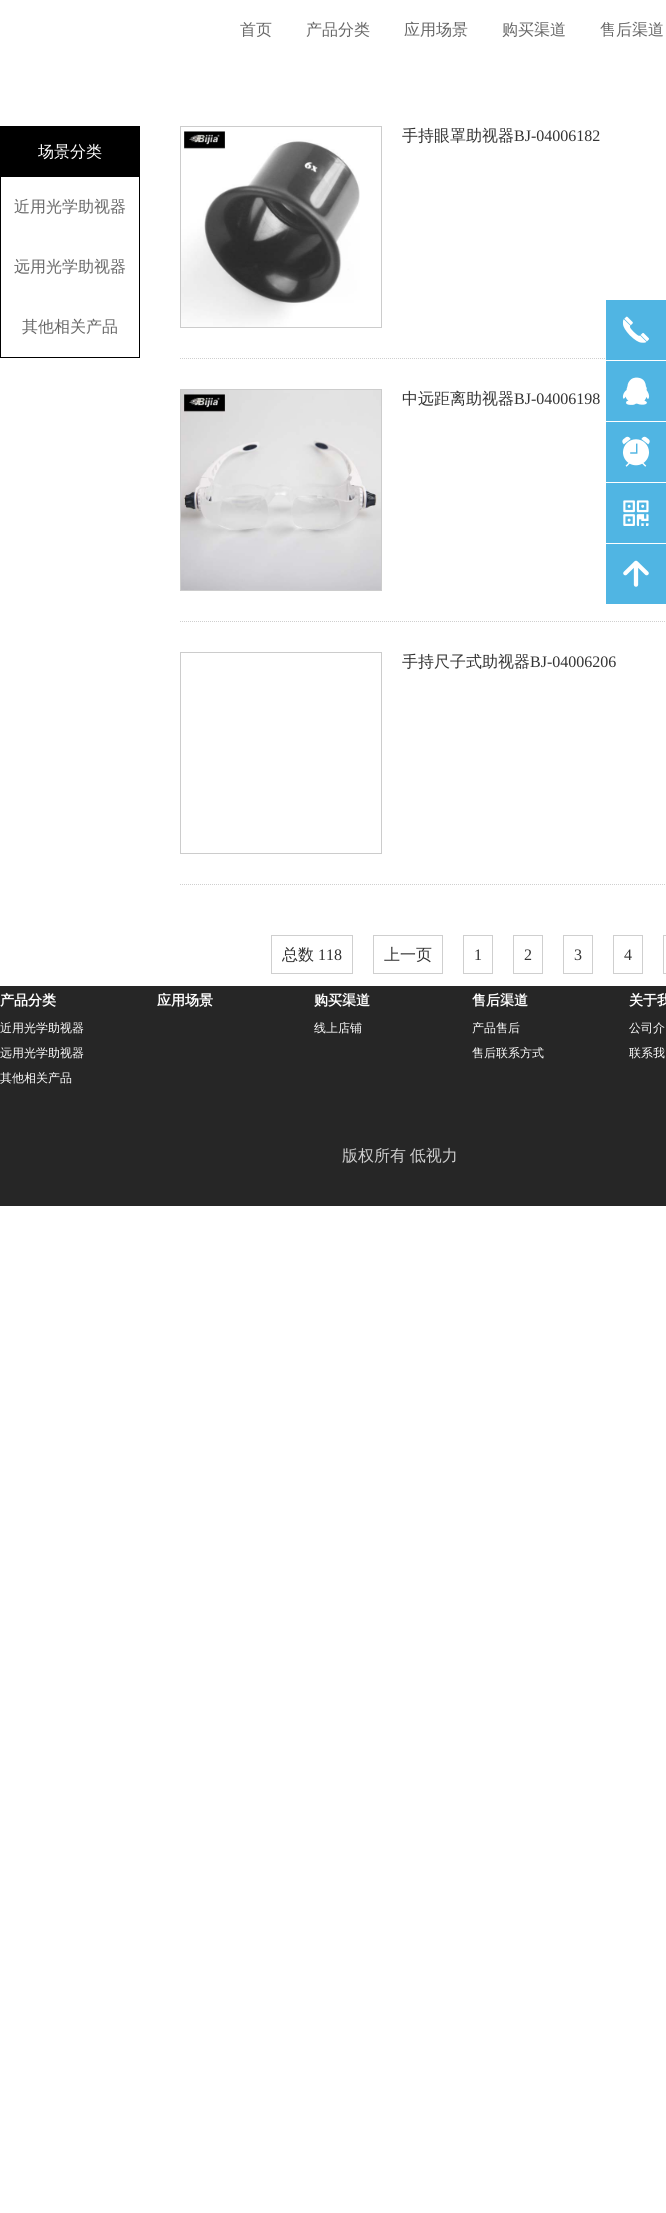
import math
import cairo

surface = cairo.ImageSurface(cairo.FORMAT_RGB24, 666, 2213)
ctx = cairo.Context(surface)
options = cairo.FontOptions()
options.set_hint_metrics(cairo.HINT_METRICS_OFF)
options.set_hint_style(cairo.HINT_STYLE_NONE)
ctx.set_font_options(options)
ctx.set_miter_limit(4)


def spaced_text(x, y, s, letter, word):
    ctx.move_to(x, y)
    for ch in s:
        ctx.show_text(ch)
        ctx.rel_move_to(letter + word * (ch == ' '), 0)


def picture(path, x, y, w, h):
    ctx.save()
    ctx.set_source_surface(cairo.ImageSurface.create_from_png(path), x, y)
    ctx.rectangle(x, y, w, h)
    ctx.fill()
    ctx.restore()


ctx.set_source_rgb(1, 1, 1)
ctx.paint()
ctx.select_font_face("WenQuanYi Zen Hei Medium")
ctx.set_font_size(16)
ctx.set_source_rgb(0.4, 0.4, 0.4)
ctx.move_to(240, 35)
ctx.show_text("首页")
ctx.move_to(306, 35)
ctx.show_text("产品分类")
ctx.move_to(404, 35)
ctx.show_text("应用场景")
ctx.move_to(502, 35)
ctx.show_text("购买渠道")
ctx.move_to(600, 35)
ctx.show_text("售后渠道")
ctx.rectangle(0.5, 126.5, 139, 231)
ctx.set_source_rgb(0, 0, 0)
ctx.set_line_width(1)
ctx.stroke()
ctx.rectangle(1, 127, 138, 50)
ctx.fill()
ctx.set_source_rgb(1, 1, 1)
ctx.move_to(38, 157)
ctx.show_text("场景分类")
ctx.set_source_rgb(0.4, 0.4, 0.4)
ctx.move_to(14, 212)
ctx.show_text("近用光学助视器")
ctx.move_to(14, 272)
ctx.show_text("远用光学助视器")
ctx.move_to(22, 332)
ctx.show_text("其他相关产品")
ctx.rectangle(180.5, 126.5, 201, 201)
ctx.set_source_rgb(0.8, 0.8, 0.8)
ctx.stroke()
picture("img1.png", 181, 131, 179, 196)
ctx.set_source_rgb(0.2, 0.2, 0.2)
ctx.move_to(402, 141)
ctx.show_text("手持眼罩助视器")
ctx.select_font_face("Liberation Serif")
ctx.move_to(514, 141)
ctx.show_text("BJ-04006182")
ctx.new_path()
ctx.move_to(180, 358.5)
ctx.line_to(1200, 358.5)
ctx.set_source_rgb(0.812, 0.812, 0.812)
ctx.set_dash([1, 1])
ctx.stroke()
ctx.rectangle(180.5, 389.5, 201, 201)
ctx.set_source_rgb(0.8, 0.8, 0.8)
ctx.set_dash([])
ctx.stroke()
picture("img2.png", 181, 390, 200, 200)
ctx.select_font_face("WenQuanYi Zen Hei Medium")
ctx.set_source_rgb(0.2, 0.2, 0.2)
ctx.move_to(402, 404)
ctx.show_text("中远距离助视器")
ctx.select_font_face("Liberation Serif")
ctx.move_to(514, 404)
ctx.show_text("BJ-04006198")
ctx.new_path()
ctx.move_to(180, 621.5)
ctx.line_to(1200, 621.5)
ctx.set_source_rgb(0.812, 0.812, 0.812)
ctx.set_dash([1, 1])
ctx.stroke()
ctx.rectangle(180.5, 652.5, 201, 201)
ctx.set_source_rgb(0.8, 0.8, 0.8)
ctx.set_dash([])
ctx.stroke()
ctx.select_font_face("WenQuanYi Zen Hei Medium")
ctx.set_source_rgb(0.2, 0.2, 0.2)
ctx.move_to(402, 667)
ctx.show_text("手持尺子式助视器")
ctx.select_font_face("Liberation Serif")
ctx.move_to(530, 667)
ctx.show_text("BJ-04006206")
ctx.new_path()
ctx.move_to(180, 884.5)
ctx.line_to(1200, 884.5)
ctx.set_source_rgb(0.812, 0.812, 0.812)
ctx.set_dash([1, 1])
ctx.stroke()
ctx.rectangle(271.5, 935.5, 81, 38)
ctx.set_dash([])
ctx.stroke()
ctx.select_font_face("WenQuanYi Zen Hei Medium")
ctx.set_source_rgb(0.2, 0.2, 0.2)
ctx.move_to(282, 960)
ctx.show_text("总数")
ctx.select_font_face("Liberation Serif")
ctx.move_to(318, 960)
ctx.show_text("118")
ctx.rectangle(373.5, 935.5, 69, 38)
ctx.set_source_rgb(0.812, 0.812, 0.812)
ctx.stroke()
ctx.select_font_face("WenQuanYi Zen Hei Medium")
ctx.set_source_rgb(0.2, 0.2, 0.2)
ctx.move_to(384, 960)
ctx.show_text("上一页")
ctx.rectangle(463.5, 935.5, 29, 38)
ctx.set_source_rgb(0.812, 0.812, 0.812)
ctx.stroke()
ctx.select_font_face("Liberation Serif")
ctx.set_source_rgb(0.2, 0.2, 0.2)
ctx.move_to(474, 960)
ctx.show_text("1")
ctx.rectangle(513.5, 935.5, 29, 38)
ctx.set_source_rgb(0.812, 0.812, 0.812)
ctx.stroke()
ctx.set_source_rgb(0.2, 0.2, 0.2)
ctx.move_to(524, 960)
ctx.show_text("2")
ctx.rectangle(563.5, 935.5, 29, 38)
ctx.set_source_rgb(0.812, 0.812, 0.812)
ctx.stroke()
ctx.set_source_rgb(0.2, 0.2, 0.2)
ctx.move_to(574, 960)
ctx.show_text("3")
ctx.rectangle(613.5, 935.5, 29, 38)
ctx.set_source_rgb(0.812, 0.812, 0.812)
ctx.stroke()
ctx.set_source_rgb(0.2, 0.2, 0.2)
ctx.move_to(624, 960)
ctx.show_text("4")
ctx.rectangle(663.5, 935.5, 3, 38)
ctx.set_source_rgb(0.812, 0.812, 0.812)
ctx.stroke()
ctx.set_source_rgb(0.314, 0.71, 0.89)
ctx.rectangle(606, 300, 60, 60)
ctx.fill()
picture("img3.png", 622, 316, 27, 27)
ctx.rectangle(606, 361, 60, 60)
ctx.fill()
picture("img4.png", 622, 377, 28, 28)
ctx.rectangle(606, 422, 60, 60)
ctx.fill()
picture("img5.png", 622, 436, 28, 31)
ctx.rectangle(606, 483, 60, 60)
ctx.fill()
picture("img6.png", 623, 500, 26, 26)
ctx.rectangle(606, 544, 60, 60)
ctx.fill()
picture("img7.png", 623, 560, 26, 27)
ctx.set_source_rgb(0.149, 0.149, 0.149)
ctx.rectangle(0, 986, 666, 220)
ctx.fill()
ctx.select_font_face("WenQuanYi Zen Hei", cairo.FONT_SLANT_NORMAL, cairo.FONT_WEIGHT_BOLD)
ctx.set_font_size(14)
ctx.set_source_rgb(1, 1, 1)
ctx.move_to(0, 1005)
ctx.show_text("产品分类")
ctx.select_font_face("WenQuanYi Zen Hei Medium")
ctx.set_font_size(12)
ctx.move_to(0, 1032)
ctx.show_text("近用光学助视器")
ctx.move_to(0, 1057)
ctx.show_text("远用光学助视器")
ctx.move_to(0, 1082)
ctx.show_text("其他相关产品")
ctx.select_font_face("WenQuanYi Zen Hei", cairo.FONT_SLANT_NORMAL, cairo.FONT_WEIGHT_BOLD)
ctx.set_font_size(14)
ctx.move_to(157, 1005)
ctx.show_text("应用场景")
ctx.move_to(314, 1005)
ctx.show_text("购买渠道")
ctx.select_font_face("WenQuanYi Zen Hei Medium")
ctx.set_font_size(12)
ctx.move_to(314, 1032)
ctx.show_text("线上店铺")
ctx.select_font_face("WenQuanYi Zen Hei", cairo.FONT_SLANT_NORMAL, cairo.FONT_WEIGHT_BOLD)
ctx.set_font_size(14)
ctx.move_to(472, 1005)
ctx.show_text("售后渠道")
ctx.select_font_face("WenQuanYi Zen Hei Medium")
ctx.set_font_size(12)
ctx.move_to(472, 1032)
ctx.show_text("产品售后")
ctx.move_to(472, 1057)
ctx.show_text("售后联系方式")
ctx.select_font_face("WenQuanYi Zen Hei", cairo.FONT_SLANT_NORMAL, cairo.FONT_WEIGHT_BOLD)
ctx.set_font_size(14)
ctx.move_to(629, 1005)
ctx.show_text("关于我")
ctx.select_font_face("WenQuanYi Zen Hei Medium")
ctx.set_font_size(12)
ctx.move_to(629, 1032)
ctx.show_text("公司介")
ctx.move_to(629, 1057)
ctx.show_text("联系我")
ctx.set_font_size(16)
ctx.set_source_rgb(0.808, 0.808, 0.808)
spaced_text(342, 1161, "版权所有 低视力", 0, -1)
surface.write_to_png("page.png")
